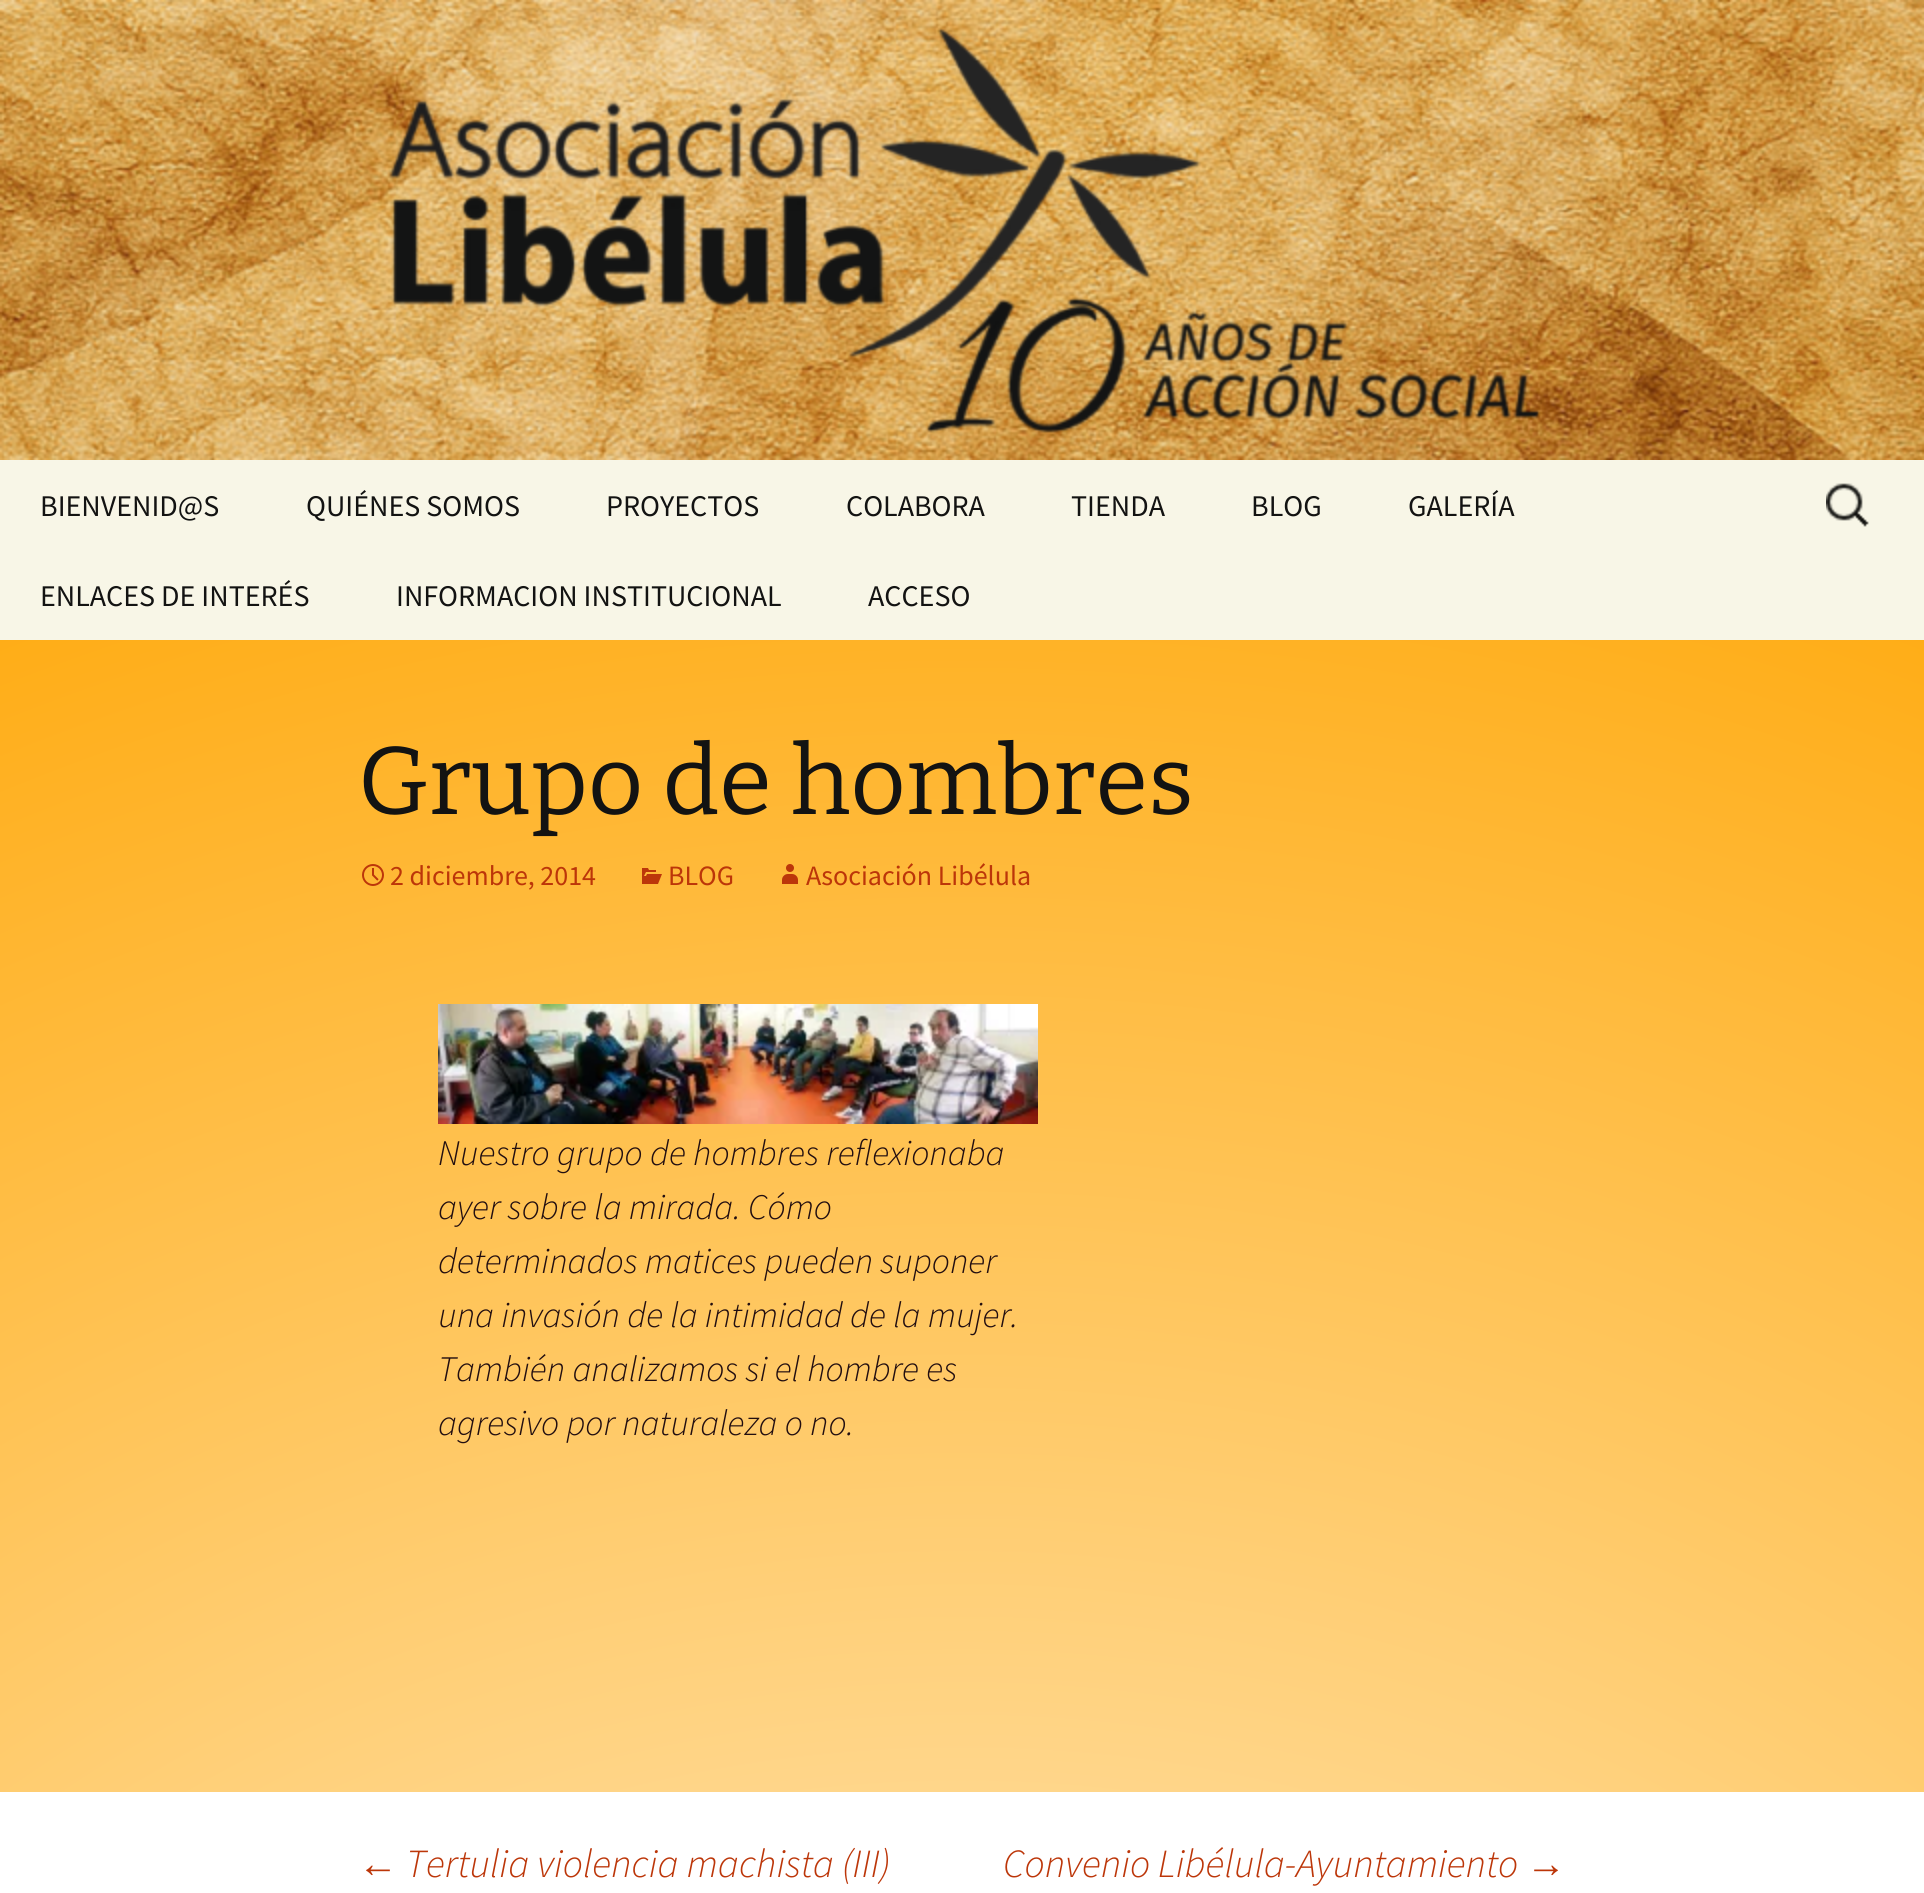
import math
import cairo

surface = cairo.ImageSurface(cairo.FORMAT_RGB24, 1924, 1893)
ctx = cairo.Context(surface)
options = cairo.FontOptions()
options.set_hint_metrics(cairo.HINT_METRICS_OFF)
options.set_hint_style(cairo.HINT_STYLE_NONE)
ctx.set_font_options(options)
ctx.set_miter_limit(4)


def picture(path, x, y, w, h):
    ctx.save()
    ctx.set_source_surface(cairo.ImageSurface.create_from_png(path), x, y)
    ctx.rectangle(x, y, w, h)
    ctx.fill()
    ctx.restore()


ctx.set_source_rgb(1, 1, 1)
ctx.paint()
picture("img1.png", 0, 0, 1924, 460)
ctx.set_source_rgb(0.969, 0.961, 0.906)
ctx.rectangle(0, 460, 1924, 180)
ctx.fill()
ctx.select_font_face("Source Sans Pro")
ctx.set_font_size(30)
ctx.set_source_rgb(0.078, 0.078, 0.071)
ctx.move_to(40, 516)
ctx.show_text("BIENVENID@S")
ctx.move_to(306, 516)
ctx.show_text("QUIÉNES SOMOS")
ctx.move_to(606, 516)
ctx.show_text("PROYECTOS")
ctx.move_to(846, 516)
ctx.show_text("COLABORA")
ctx.move_to(1071, 516)
ctx.show_text("TIENDA")
ctx.move_to(1251, 516)
ctx.show_text("BLOG")
ctx.move_to(1408, 516)
ctx.show_text("GALERÍA")
ctx.move_to(40, 606)
ctx.show_text("ENLACES DE INTERÉS")
ctx.move_to(396, 606)
ctx.show_text("INFORMACION INSTITUCIONAL")
ctx.move_to(868, 606)
ctx.show_text("ACCESO")
picture("img2.png", 1826, 483, 43, 44)
gradient = cairo.RadialGradient(962, 3138, 0, 962, 3138, 2945)
gradient.add_color_stop_rgba(0, 1, 1, 1, 1)
gradient.add_color_stop_rgba(1, 1, 0.647, 0, 1)
ctx.set_source(gradient)
ctx.rectangle(0, 640, 1924, 1152)
ctx.fill()
ctx.select_font_face("Bitter Thin")
ctx.set_font_size(96)
ctx.set_source_rgb(0.078, 0.078, 0.071)
ctx.move_to(358, 814)
ctx.show_text("Grupo de hombres")
picture("img3.png", 362, 864, 22, 22)
ctx.select_font_face("Source Sans Pro")
ctx.set_font_size(28)
ctx.set_source_rgb(0.737, 0.212, 0.039)
ctx.move_to(390, 885)
ctx.show_text("2 diciembre, 2014")
picture("img4.png", 642, 868, 20, 16)
ctx.move_to(668, 885)
ctx.show_text("BLOG")
picture("img5.png", 782, 864, 16, 20)
ctx.move_to(806, 885)
ctx.show_text("Asociación Libélula")
picture("img6.png", 438, 1004, 600, 120)
ctx.select_font_face("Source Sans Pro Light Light", cairo.FONT_SLANT_ITALIC)
ctx.set_font_size(36)
ctx.set_source_rgb(0.133, 0.055, 0.063)
ctx.move_to(438, 1165)
ctx.show_text("Nuestro grupo de hombres reflexionaba")
ctx.move_to(438, 1219)
ctx.show_text("ayer sobre la mirada. Cómo")
ctx.move_to(438, 1273)
ctx.show_text("determinados matices pueden suponer")
ctx.move_to(438, 1327)
ctx.show_text("una invasión de la intimidad de la mujer.")
ctx.move_to(438, 1381)
ctx.show_text("También analizamos si el hombre es")
ctx.move_to(438, 1435)
ctx.show_text("agresivo por naturaleza o no.")
ctx.select_font_face("Liberation Sans", cairo.FONT_SLANT_ITALIC)
ctx.set_font_size(40)
ctx.set_source_rgb(0.737, 0.212, 0.039)
ctx.move_to(358, 1877)
ctx.show_text("←")
ctx.select_font_face("Source Sans Pro Light Light", cairo.FONT_SLANT_ITALIC)
ctx.move_to(406, 1877)
ctx.show_text("Tertulia violencia machista (III)")
ctx.move_to(1003, 1877)
ctx.show_text("Convenio Libélula-Ayuntamiento")
ctx.select_font_face("Liberation Sans", cairo.FONT_SLANT_ITALIC)
ctx.move_to(1526, 1877)
ctx.show_text("→")
surface.write_to_png("page.png")
